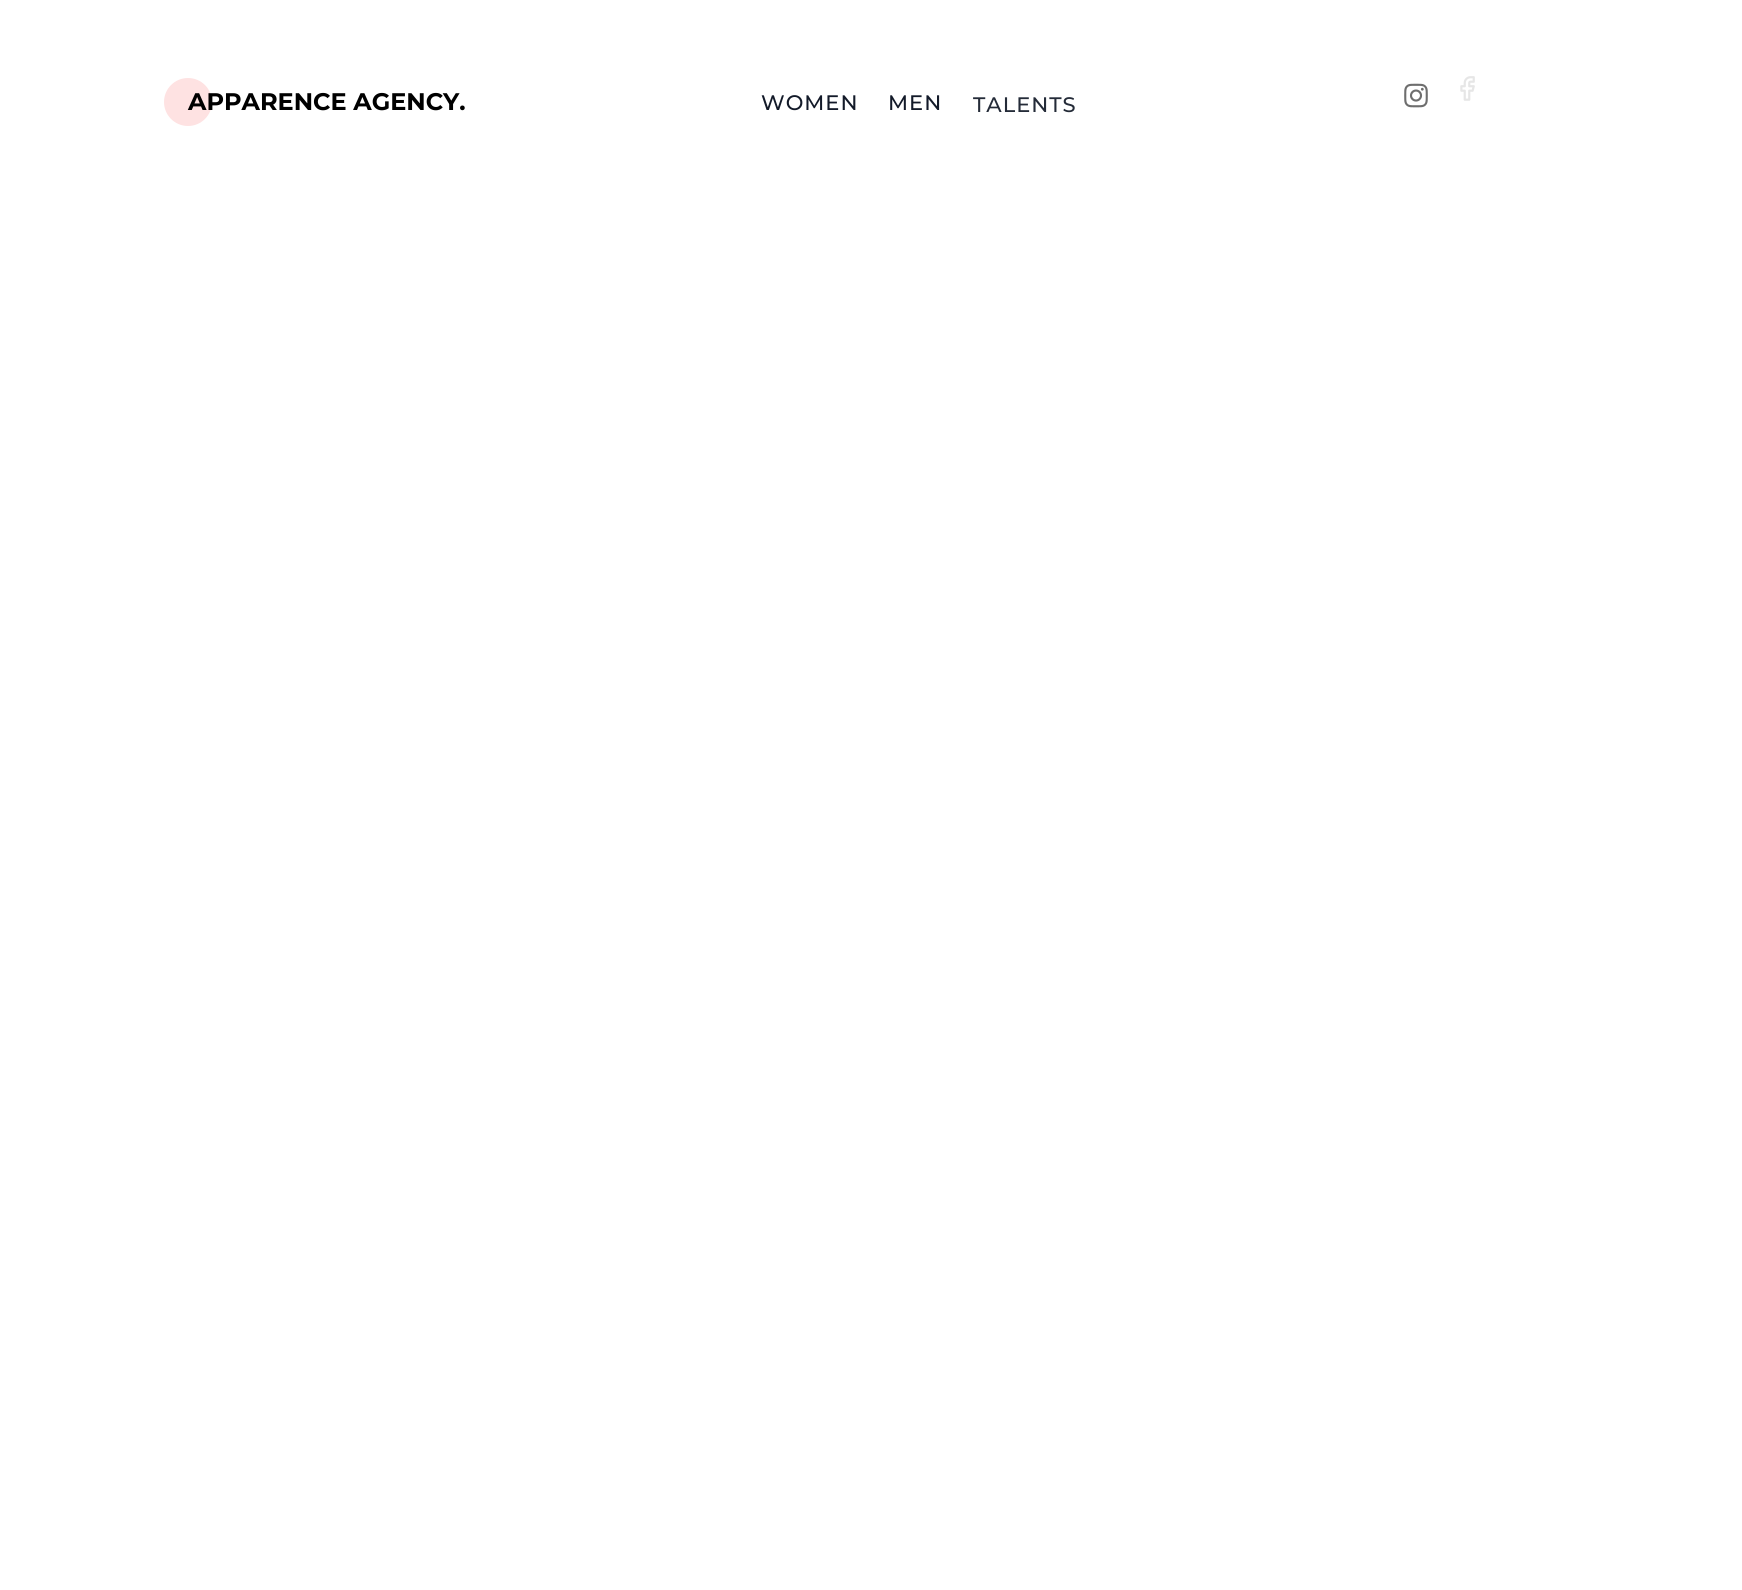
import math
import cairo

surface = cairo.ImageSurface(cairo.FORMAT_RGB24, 1742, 1590)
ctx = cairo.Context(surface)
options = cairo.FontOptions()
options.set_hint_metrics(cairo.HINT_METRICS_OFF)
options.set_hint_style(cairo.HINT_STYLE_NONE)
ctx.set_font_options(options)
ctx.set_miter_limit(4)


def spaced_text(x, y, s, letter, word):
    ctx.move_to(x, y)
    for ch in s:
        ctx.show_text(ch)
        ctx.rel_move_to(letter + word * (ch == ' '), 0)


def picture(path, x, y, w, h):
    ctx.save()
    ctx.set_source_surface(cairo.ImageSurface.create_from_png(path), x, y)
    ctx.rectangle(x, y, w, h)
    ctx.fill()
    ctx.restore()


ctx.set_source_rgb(1, 1, 1)
ctx.paint()
ctx.set_source_rgb(0.996, 0.886, 0.886)
ctx.arc(188, 102, 24, 0, 2 * math.pi)
ctx.fill()
ctx.select_font_face("Montserrat", cairo.FONT_SLANT_NORMAL, cairo.FONT_WEIGHT_BOLD)
ctx.set_font_size(24)
ctx.set_source_rgb(0, 0, 0)
ctx.move_to(188, 110)
ctx.show_text("APPARENCE AGENCY.")
ctx.select_font_face("Montserrat Medium")
ctx.set_font_size(21)
ctx.set_source_rgb(0.075, 0.102, 0.161)
spaced_text(761, 110, "WOMEN", 1, 0)
spaced_text(888, 110, "MEN", 1, 0)
ctx.set_source_rgb(0.141, 0.169, 0.22)
spaced_text(973, 112, "TALENTS", 1, 0)
picture("img1.png", 1404, 83, 24, 25)
picture("img2.png", 1460, 76, 15, 25)
surface.write_to_png("page.png")
